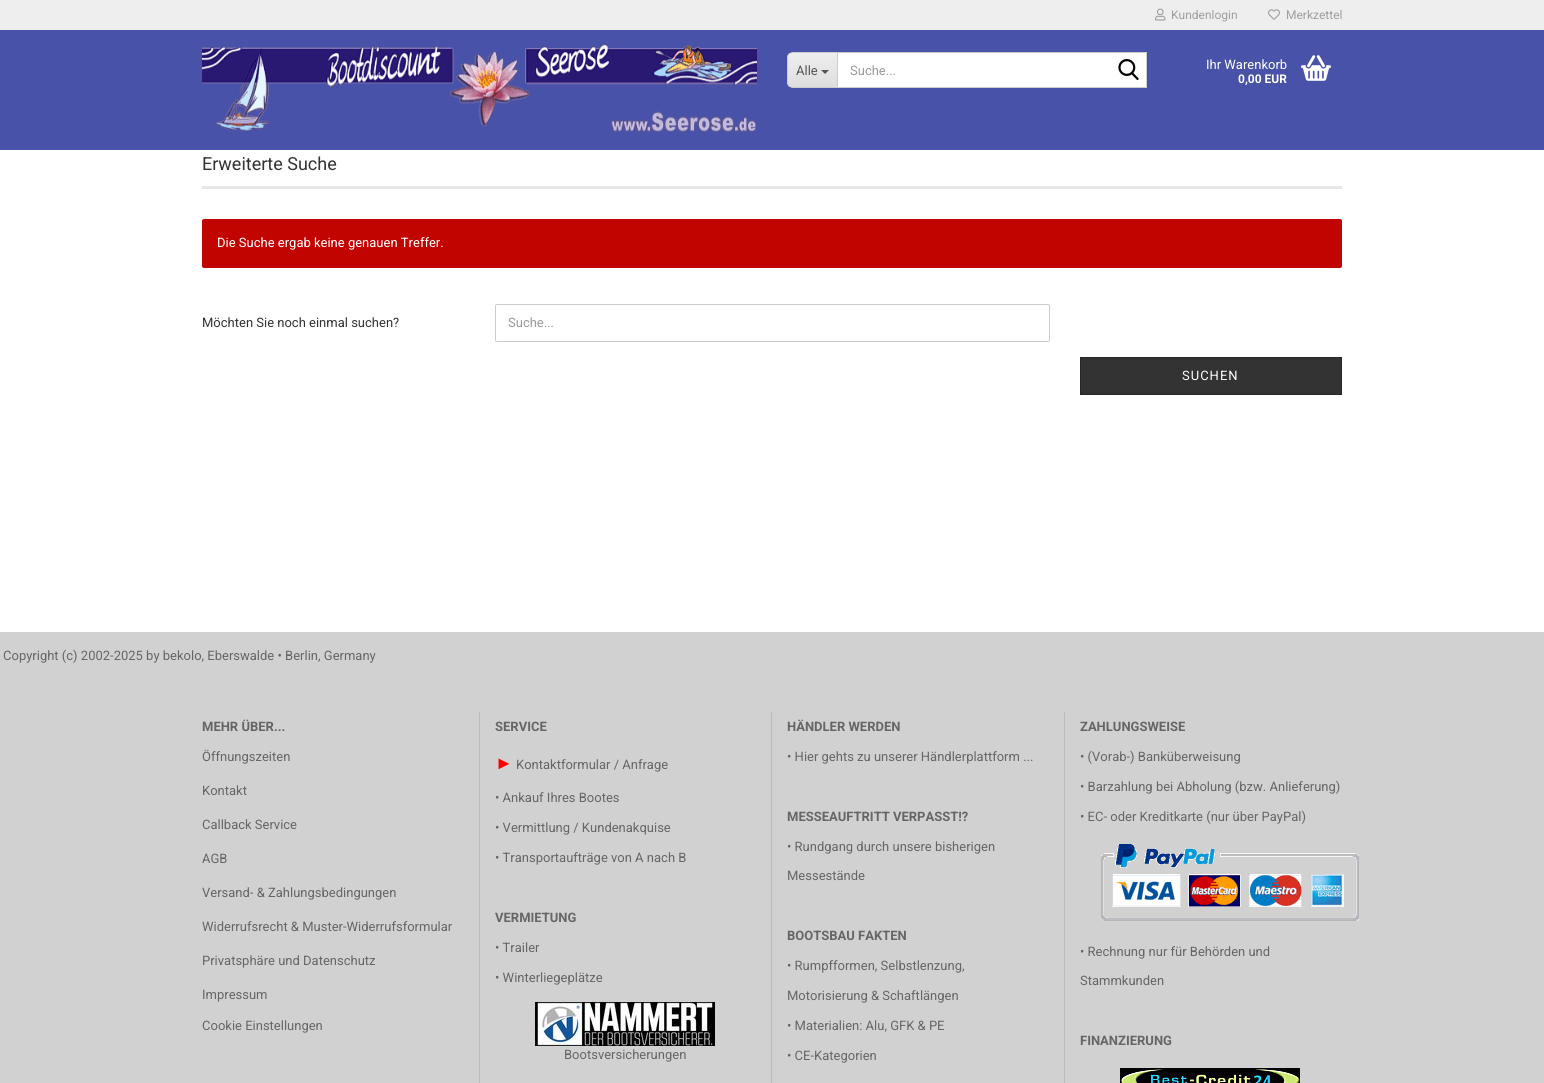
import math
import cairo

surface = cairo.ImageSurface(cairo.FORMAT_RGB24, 1544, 1083)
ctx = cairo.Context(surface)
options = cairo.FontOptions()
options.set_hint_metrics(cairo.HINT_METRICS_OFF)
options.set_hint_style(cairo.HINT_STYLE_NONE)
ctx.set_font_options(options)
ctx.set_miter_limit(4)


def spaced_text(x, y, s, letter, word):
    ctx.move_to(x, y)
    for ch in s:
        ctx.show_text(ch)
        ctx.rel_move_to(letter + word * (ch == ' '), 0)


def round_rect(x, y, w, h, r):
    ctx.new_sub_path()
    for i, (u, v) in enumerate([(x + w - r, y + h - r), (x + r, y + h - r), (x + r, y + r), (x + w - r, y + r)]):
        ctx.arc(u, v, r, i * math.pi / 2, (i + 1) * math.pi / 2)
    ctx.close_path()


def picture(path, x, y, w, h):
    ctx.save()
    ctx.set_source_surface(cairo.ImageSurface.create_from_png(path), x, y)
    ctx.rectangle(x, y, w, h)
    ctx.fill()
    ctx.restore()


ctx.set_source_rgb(1, 1, 1)
ctx.paint()
ctx.set_source_rgb(0.278, 0.322, 0.659)
ctx.rectangle(0, 30, 1544, 120)
ctx.fill()
ctx.set_source_rgb(0.933, 0.933, 0.933)
ctx.rectangle(0, 0, 1544, 30)
ctx.fill()
picture("img1.png", 1155, 8, 11, 13)
ctx.select_font_face("Roboto")
ctx.set_font_size(12)
ctx.set_source_rgb(0.624, 0.624, 0.624)
ctx.move_to(1171, 19)
ctx.show_text("Kundenlogin")
picture("img2.png", 1268, 9, 12, 11)
ctx.move_to(1286, 19)
ctx.show_text("Merkzettel")
picture("img3.png", 202, 44, 555, 88)
ctx.save()
ctx.new_path()
ctx.move_to(793, 52)
ctx.line_to(837, 52)
ctx.line_to(837, 88)
ctx.line_to(793, 88)
ctx.curve_to(789.5, 88, 787, 85.5, 787, 82)
ctx.line_to(787, 58)
ctx.curve_to(787, 54.5, 789.5, 52, 793, 52)
ctx.close_path()
ctx.clip()
gradient = cairo.LinearGradient(813, 53, 813, 87)
gradient.add_color_stop_rgba(0, 0.933, 0.933, 0.933, 1)
gradient.add_color_stop_rgba(1, 0.871, 0.871, 0.871, 1)
ctx.set_source(gradient)
ctx.rectangle(787, 53, 50, 34)
ctx.fill()
ctx.restore()
ctx.set_source_rgb(0.8, 0.8, 0.8)
ctx.set_fill_rule(cairo.FILL_RULE_EVEN_ODD)
ctx.new_path()
ctx.move_to(793, 52)
ctx.line_to(837, 52)
ctx.line_to(837, 88)
ctx.line_to(793, 88)
ctx.curve_to(790, 88, 787, 85, 787, 82)
ctx.line_to(787, 58)
ctx.curve_to(787, 55, 790, 52, 793, 52)
ctx.close_path()
ctx.move_to(793, 53)
ctx.line_to(837, 53)
ctx.line_to(837, 87)
ctx.line_to(793, 87)
ctx.curve_to(790, 87, 788, 85, 788, 82)
ctx.line_to(788, 58)
ctx.curve_to(788, 55, 790, 53, 793, 53)
ctx.close_path()
ctx.fill()
ctx.set_font_size(13)
ctx.set_source_rgb(0.333, 0.333, 0.333)
ctx.move_to(796, 75)
ctx.show_text("Alle")
ctx.set_fill_rule(cairo.FILL_RULE_WINDING)
ctx.new_path()
ctx.move_to(821, 70)
ctx.line_to(829, 70)
ctx.line_to(825, 74)
ctx.close_path()
ctx.fill()
ctx.set_source_rgb(1, 1, 1)
ctx.rectangle(837.5, 52.5, 309, 35)
ctx.fill_preserve()
ctx.set_source_rgb(0.8, 0.8, 0.8)
ctx.set_line_width(1)
ctx.stroke()
ctx.set_source_rgb(0.6, 0.6, 0.6)
ctx.move_to(850, 75)
ctx.show_text("Suche...")
picture("img4.png", 1118, 59, 21, 21)
ctx.set_source_rgb(1, 1, 1)
ctx.move_to(1206, 69)
ctx.show_text("Ihr Warenkorb")
ctx.select_font_face("Roboto", cairo.FONT_SLANT_NORMAL, cairo.FONT_WEIGHT_BOLD)
ctx.set_font_size(12)
ctx.move_to(1238, 83)
ctx.show_text("0,00 EUR")
picture("img5.png", 1301, 55, 30, 26)
ctx.set_source_rgb(0.906, 0.906, 0.906)
ctx.rectangle(202, 186, 1140, 3)
ctx.fill()
ctx.select_font_face("Roboto")
ctx.set_font_size(18)
ctx.set_source_rgb(0.2, 0.2, 0.2)
ctx.move_to(202, 170)
ctx.show_text("Erweiterte Suche")
ctx.set_source_rgb(0.761, 0.016, 0)
round_rect(202, 219, 1140, 49, 2)
ctx.fill()
ctx.set_font_size(13)
ctx.set_source_rgb(1, 1, 1)
ctx.move_to(217, 247)
ctx.show_text("Die Suche ergab keine genauen Treffer.")
ctx.set_source_rgb(0.2, 0.2, 0.2)
ctx.move_to(202, 327)
ctx.show_text("Möchten Sie noch einmal suchen?")
round_rect(495.5, 304.5, 554, 37, 1.5)
ctx.set_source_rgb(0.8, 0.8, 0.8)
ctx.stroke()
ctx.set_source_rgb(0.6, 0.6, 0.6)
ctx.move_to(508, 327)
ctx.show_text("Suche...")
ctx.set_source_rgb(0.2, 0.2, 0.2)
ctx.rectangle(1080.5, 357.5, 261, 37)
ctx.fill_preserve()
ctx.set_source_rgb(0.149, 0.149, 0.149)
ctx.stroke()
ctx.set_source_rgb(1, 1, 1)
spaced_text(1182, 380, "SUCHEN", 1, 0)
ctx.set_source_rgb(0.82, 0.82, 0.82)
ctx.rectangle(0, 632, 1544, 451)
ctx.fill()
ctx.set_source_rgb(0.4, 0.4, 0.4)
ctx.move_to(3, 660)
ctx.show_text("Copyright (c) 2002-2025 by bekolo, Eberswalde • Berlin, Germany")
ctx.set_source_rgb(0.733, 0.733, 0.733)
ctx.rectangle(479, 712, 1, 371)
ctx.fill()
ctx.select_font_face("Roboto", cairo.FONT_SLANT_NORMAL, cairo.FONT_WEIGHT_BOLD)
ctx.set_source_rgb(0.4, 0.4, 0.4)
ctx.move_to(202, 731)
ctx.show_text("MEHR ÜBER...")
ctx.select_font_face("Roboto")
ctx.move_to(202, 761)
ctx.show_text("Öffnungszeiten")
ctx.move_to(202, 795)
ctx.show_text("Kontakt")
ctx.move_to(202, 829)
ctx.show_text("Callback Service")
ctx.move_to(202, 863)
ctx.show_text("AGB")
ctx.move_to(202, 897)
ctx.show_text("Versand- & Zahlungsbedingungen")
ctx.move_to(202, 931)
ctx.show_text("Widerrufsrecht & Muster-Widerrufsformular")
ctx.move_to(202, 965)
ctx.show_text("Privatsphäre und Datenschutz")
ctx.move_to(202, 999)
ctx.show_text("Impressum")
ctx.move_to(202, 1030)
ctx.show_text("Cookie Einstellungen")
ctx.set_source_rgb(0.733, 0.733, 0.733)
ctx.rectangle(771, 712, 1, 371)
ctx.fill()
ctx.select_font_face("Roboto", cairo.FONT_SLANT_NORMAL, cairo.FONT_WEIGHT_BOLD)
ctx.set_source_rgb(0.4, 0.4, 0.4)
ctx.move_to(495, 731)
ctx.show_text("SERVICE")
ctx.select_font_face("Liberation Sans")
ctx.set_font_size(18)
ctx.set_source_rgb(1, 0, 0)
ctx.move_to(495, 769)
ctx.show_text("►")
ctx.select_font_face("Roboto")
ctx.set_font_size(13)
ctx.set_source_rgb(0.4, 0.4, 0.4)
ctx.move_to(516, 769)
ctx.show_text("Kontaktformular / Anfrage")
ctx.move_to(495, 802)
ctx.show_text("• Ankauf Ihres Bootes")
ctx.move_to(495, 832)
ctx.show_text("• Vermittlung / Kundenakquise")
ctx.move_to(495, 862)
ctx.show_text("• Transportaufträge von A nach B")
ctx.select_font_face("Roboto", cairo.FONT_SLANT_NORMAL, cairo.FONT_WEIGHT_BOLD)
ctx.move_to(495, 922)
ctx.show_text("VERMIETUNG")
ctx.select_font_face("Roboto")
ctx.move_to(495, 952)
ctx.show_text("• Trailer")
ctx.move_to(495, 982)
ctx.show_text("• Winterliegeplätze")
picture("img6.png", 535, 1002, 180, 44)
ctx.move_to(564, 1059)
ctx.show_text("Bootsversicherungen")
ctx.set_source_rgb(0.733, 0.733, 0.733)
ctx.rectangle(1064, 712, 1, 371)
ctx.fill()
ctx.select_font_face("Roboto", cairo.FONT_SLANT_NORMAL, cairo.FONT_WEIGHT_BOLD)
ctx.set_source_rgb(0.4, 0.4, 0.4)
ctx.move_to(787, 731)
ctx.show_text("HÄNDLER WERDEN")
ctx.select_font_face("Roboto")
ctx.move_to(787, 761)
ctx.show_text("• Hier gehts zu unserer Händlerplattform ...")
ctx.select_font_face("Roboto", cairo.FONT_SLANT_NORMAL, cairo.FONT_WEIGHT_BOLD)
ctx.move_to(787, 821)
ctx.show_text("MESSEAUFTRITT VERPASST!?")
ctx.select_font_face("Roboto")
ctx.move_to(787, 851)
ctx.show_text("• Rundgang durch unsere bisherigen")
ctx.move_to(787, 880)
ctx.show_text("Messestände")
ctx.select_font_face("Roboto", cairo.FONT_SLANT_NORMAL, cairo.FONT_WEIGHT_BOLD)
ctx.move_to(787, 940)
ctx.show_text("BOOTSBAU FAKTEN")
ctx.select_font_face("Roboto")
ctx.move_to(787, 970)
ctx.show_text("• Rumpfformen, Selbstlenzung,")
ctx.move_to(787, 1000)
ctx.show_text("Motorisierung & Schaftlängen")
ctx.move_to(787, 1030)
ctx.show_text("• Materialien: Alu, GFK & PE")
ctx.move_to(787, 1060)
ctx.show_text("• CE-Kategorien")
ctx.select_font_face("Roboto", cairo.FONT_SLANT_NORMAL, cairo.FONT_WEIGHT_BOLD)
ctx.move_to(1080, 731)
ctx.show_text("ZAHLUNGSWEISE")
ctx.select_font_face("Roboto")
ctx.move_to(1080, 761)
ctx.show_text("• (Vorab-) Banküberweisung")
ctx.move_to(1080, 791)
ctx.show_text("• Barzahlung bei Abholung (bzw. Anlieferung)")
ctx.move_to(1080, 821)
ctx.show_text("• EC- oder Kreditkarte (nur über PayPal)")
picture("img7.png", 1101, 844, 258, 77)
ctx.move_to(1080, 956)
ctx.show_text("• Rechnung nur für Behörden und")
ctx.move_to(1080, 985)
ctx.show_text("Stammkunden")
ctx.select_font_face("Roboto", cairo.FONT_SLANT_NORMAL, cairo.FONT_WEIGHT_BOLD)
ctx.move_to(1080, 1045)
ctx.show_text("FINANZIERUNG")
picture("img8.png", 1120, 1068, 180, 15)
surface.write_to_png("page.png")
